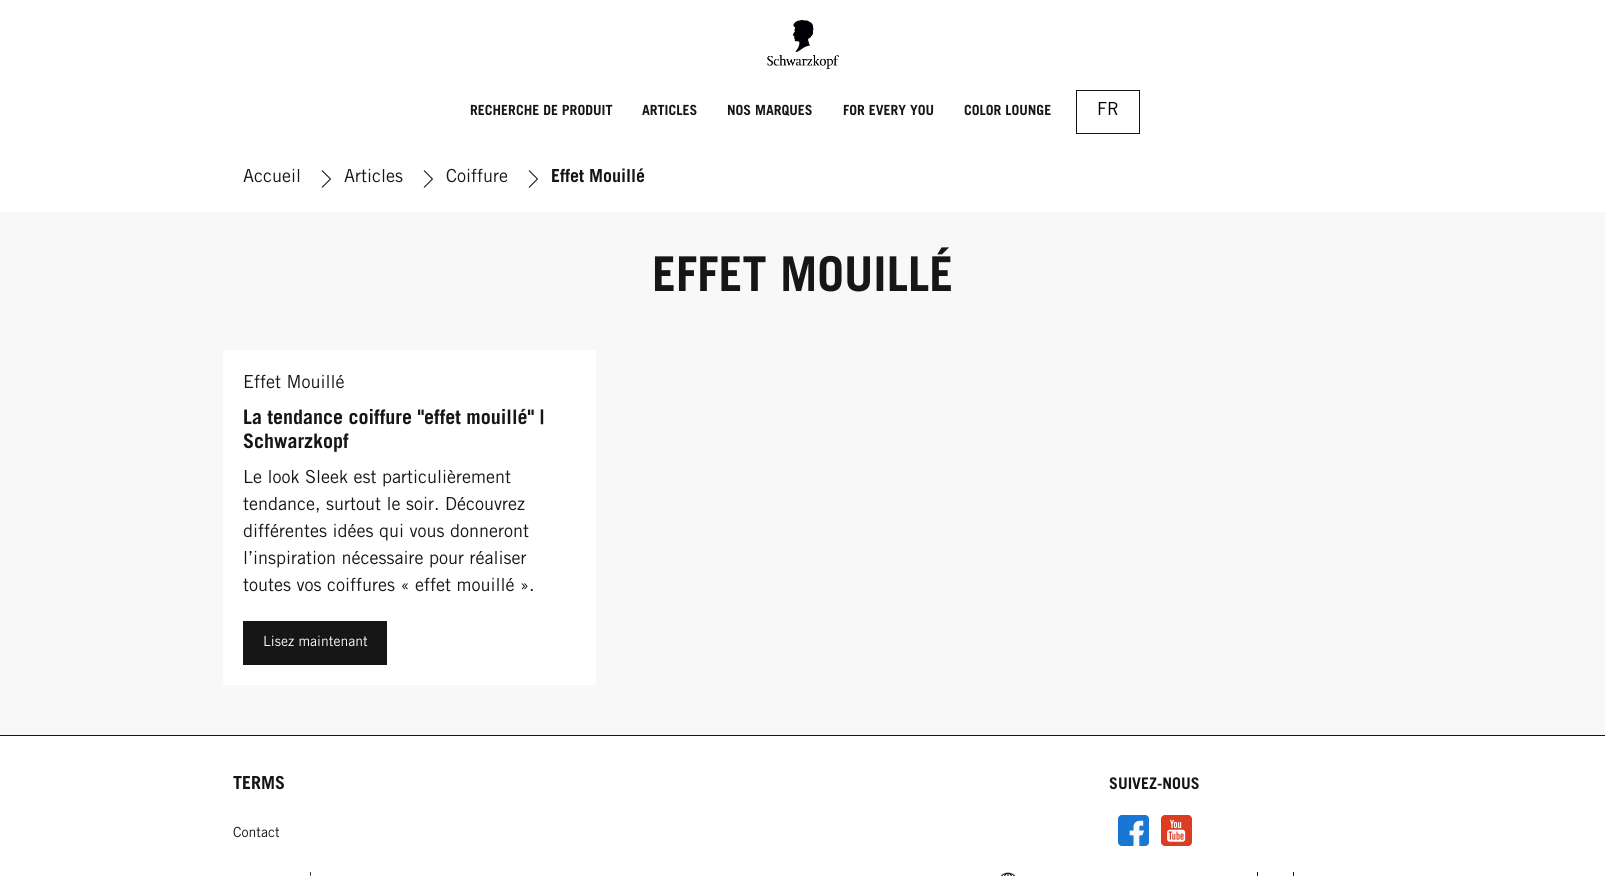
import math
import cairo

surface = cairo.ImageSurface(cairo.FORMAT_RGB24, 1605, 876)
ctx = cairo.Context(surface)
options = cairo.FontOptions()
options.set_hint_metrics(cairo.HINT_METRICS_OFF)
options.set_hint_style(cairo.HINT_STYLE_NONE)
ctx.set_font_options(options)
ctx.set_miter_limit(4)


def picture(path, x, y, w, h):
    ctx.save()
    ctx.set_source_surface(cairo.ImageSurface.create_from_png(path), x, y)
    ctx.rectangle(x, y, w, h)
    ctx.fill()
    ctx.restore()


ctx.set_source_rgb(1, 1, 1)
ctx.paint()
picture("img1.png", 767, 20, 72, 49)
ctx.select_font_face("Trade Gothic", cairo.FONT_SLANT_NORMAL, cairo.FONT_WEIGHT_BOLD)
ctx.set_font_size(14)
ctx.set_source_rgb(0.086, 0.086, 0.086)
ctx.move_to(470, 115)
ctx.show_text("RECHERCHE DE PRODUIT")
ctx.move_to(642, 115)
ctx.show_text("ARTICLES")
ctx.move_to(727, 115)
ctx.show_text("NOS MARQUES")
ctx.move_to(843, 115)
ctx.show_text("FOR EVERY YOU")
ctx.move_to(964, 115)
ctx.show_text("COLOR LOUNGE")
ctx.rectangle(1076.5, 90.5, 63, 43)
ctx.set_line_width(1)
ctx.stroke()
ctx.select_font_face("Trade Gothic")
ctx.set_font_size(18)
ctx.set_source_rgb(0, 0, 0)
ctx.move_to(1097, 115)
ctx.show_text("FR")
ctx.set_source_rgb(0.086, 0.086, 0.086)
ctx.move_to(243, 182)
ctx.show_text("Accueil")
picture("img2.png", 321, 170, 10, 18)
ctx.move_to(344, 182)
ctx.show_text("Articles")
picture("img2.png", 423, 170, 10, 18)
ctx.move_to(446, 182)
ctx.show_text("Coiffure")
picture("img2.png", 528, 170, 10, 18)
ctx.select_font_face("Trade Gothic", cairo.FONT_SLANT_NORMAL, cairo.FONT_WEIGHT_BOLD)
ctx.move_to(551, 182)
ctx.show_text("Effet Mouillé")
ctx.set_source_rgb(0.969, 0.969, 0.969)
ctx.rectangle(0, 212, 1605, 523)
ctx.fill()
ctx.set_font_size(48)
ctx.set_source_rgb(0.086, 0.086, 0.086)
ctx.move_to(652, 291)
ctx.show_text("EFFET MOUILLÉ")
ctx.set_source_rgb(1, 1, 1)
ctx.rectangle(223, 350, 373, 335)
ctx.fill()
ctx.select_font_face("Trade Gothic")
ctx.set_font_size(18)
ctx.set_source_rgb(0.086, 0.086, 0.086)
ctx.move_to(243, 388)
ctx.show_text("Effet Mouillé")
ctx.select_font_face("Trade Gothic", cairo.FONT_SLANT_NORMAL, cairo.FONT_WEIGHT_BOLD)
ctx.set_font_size(20)
ctx.move_to(243, 424)
ctx.show_text("La tendance coiffure \"effet mouillé\" |")
ctx.move_to(243, 448)
ctx.show_text("Schwarzkopf")
ctx.select_font_face("Trade Gothic")
ctx.set_font_size(18)
ctx.move_to(243, 483)
ctx.show_text("Le look Sleek est particulièrement")
ctx.move_to(243, 510)
ctx.show_text("tendance, surtout le soir. Découvrez")
ctx.move_to(243, 537)
ctx.show_text("différentes idées qui vous donneront")
ctx.move_to(243, 564)
ctx.show_text("l’inspiration nécessaire pour réaliser")
ctx.move_to(243, 591)
ctx.show_text("toutes vos coiffures « effet mouillé ».")
ctx.rectangle(243, 621, 144, 44)
ctx.fill()
ctx.set_font_size(14)
ctx.set_source_rgb(1, 1, 1)
ctx.move_to(263, 646)
ctx.show_text("Lisez maintenant")
ctx.set_source_rgb(0.086, 0.086, 0.086)
ctx.rectangle(0, 735, 1605, 1)
ctx.fill()
ctx.select_font_face("Trade Gothic", cairo.FONT_SLANT_NORMAL, cairo.FONT_WEIGHT_BOLD)
ctx.set_font_size(18)
ctx.move_to(233, 789)
ctx.show_text("TERMS")
ctx.select_font_face("Trade Gothic")
ctx.set_font_size(14)
ctx.move_to(233, 837)
ctx.show_text("Contact")
ctx.move_to(309, 882)
ctx.show_text("'")
ctx.select_font_face("Trade Gothic", cairo.FONT_SLANT_NORMAL, cairo.FONT_WEIGHT_BOLD)
ctx.set_font_size(16)
ctx.move_to(1109, 789)
ctx.show_text("SUIVEZ-NOUS")
picture("img3.png", 1118, 815, 31, 31)
picture("img4.png", 1161, 815, 31, 31)
picture("img5.png", 1001, 872, 14, 4)
ctx.rectangle(1257, 872, 1, 4)
ctx.fill()
ctx.rectangle(1293, 872, 1, 4)
ctx.fill()
surface.write_to_png("page.png")
